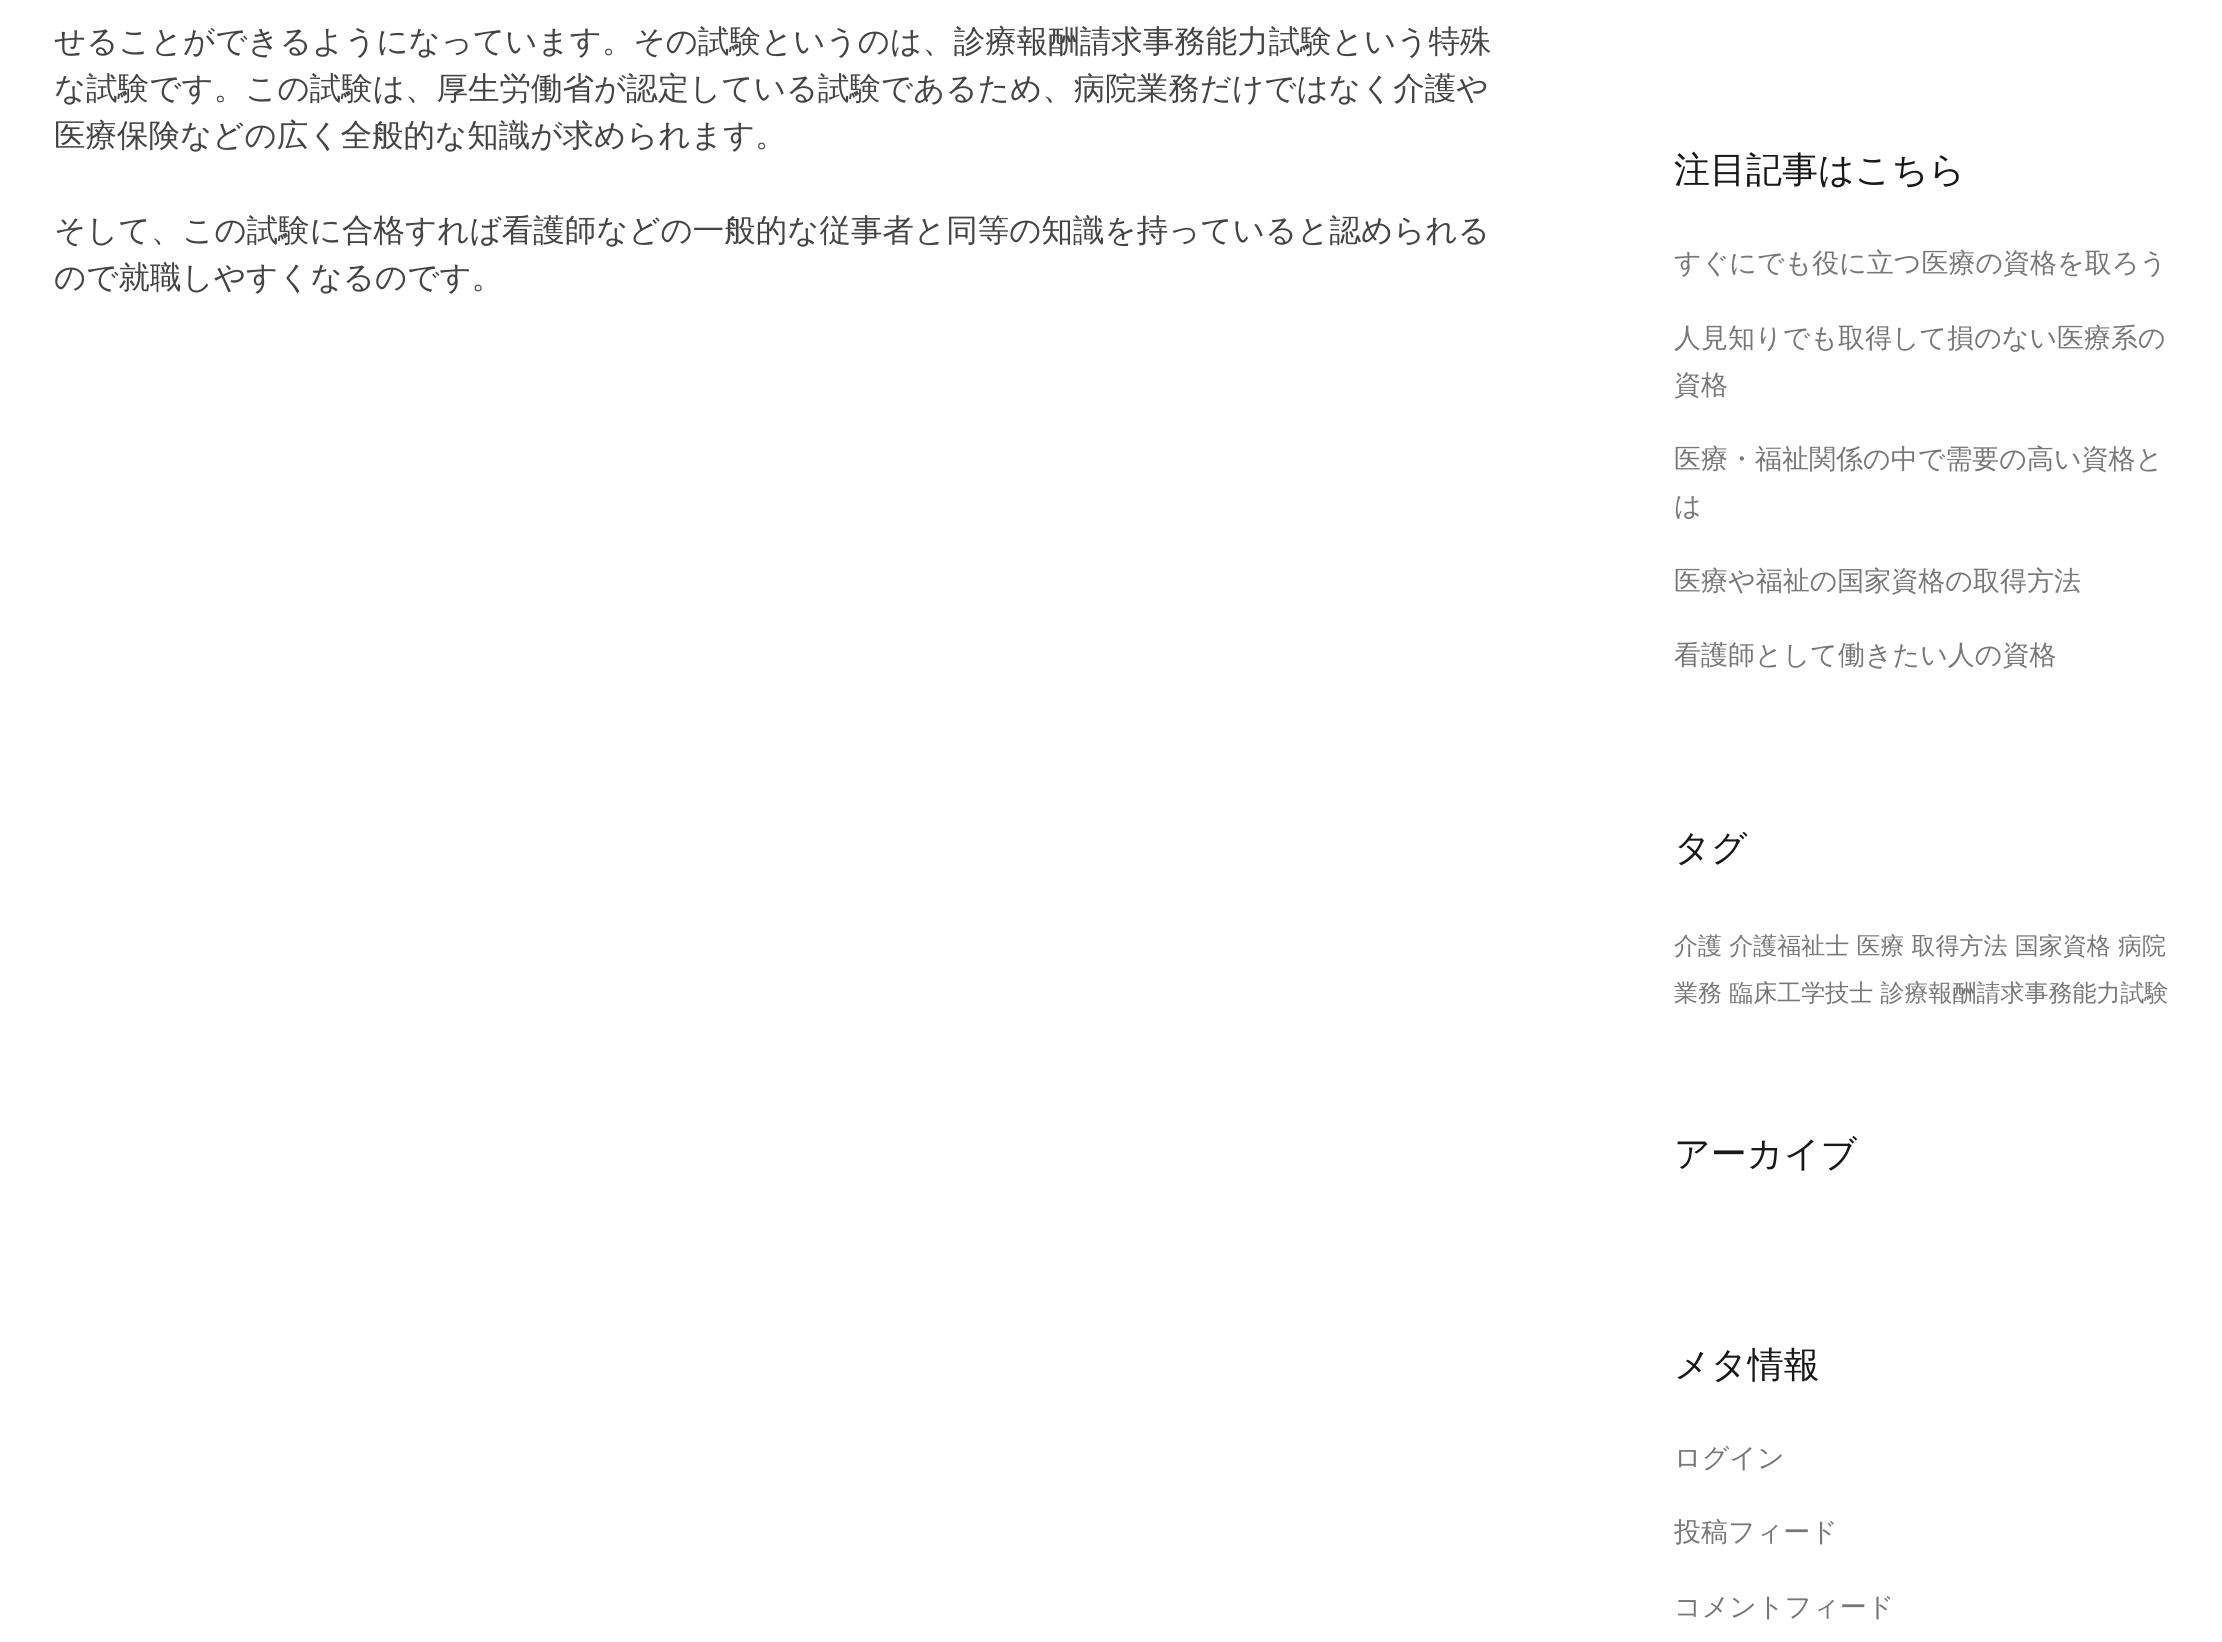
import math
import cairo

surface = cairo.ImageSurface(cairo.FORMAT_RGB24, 2222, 1642)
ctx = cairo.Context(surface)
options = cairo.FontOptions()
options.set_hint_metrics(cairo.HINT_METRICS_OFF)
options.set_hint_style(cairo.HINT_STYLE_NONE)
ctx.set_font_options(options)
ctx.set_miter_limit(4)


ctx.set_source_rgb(1, 1, 1)
ctx.paint()
ctx.select_font_face("WenQuanYi Zen Hei Medium")
ctx.set_font_size(31.5)
ctx.set_source_rgb(0.267, 0.267, 0.267)
ctx.move_to(54, 52)
ctx.show_text("せることができるようになっています。その試験というのは、診療報酬請求事務能力試験という特殊")
ctx.move_to(54, 99)
ctx.show_text("な試験です。この試験は、厚生労働省が認定している試験であるため、病院業務だけではなく介護や")
ctx.move_to(54, 146)
ctx.show_text("医療保険などの広く全般的な知識が求められます。")
ctx.move_to(54, 241)
ctx.show_text("そして、この試験に合格すれば看護師などの一般的な従事者と同等の知識を持っていると認められる")
ctx.move_to(54, 288)
ctx.show_text("ので就職しやすくなるのです。")
ctx.set_font_size(36)
ctx.set_source_rgb(0.094, 0.094, 0.094)
ctx.move_to(1674, 182)
ctx.show_text("注目記事はこちら")
ctx.set_font_size(27)
ctx.set_source_rgb(0.467, 0.467, 0.467)
ctx.move_to(1674, 272)
ctx.show_text("すぐにでも役に立つ医療の資格を取ろう")
ctx.move_to(1674, 347)
ctx.show_text("人見知りでも取得して損のない医療系の")
ctx.move_to(1674, 394)
ctx.show_text("資格")
ctx.move_to(1674, 468)
ctx.show_text("医療・福祉関係の中で需要の高い資格と")
ctx.move_to(1674, 515)
ctx.show_text("は")
ctx.move_to(1674, 590)
ctx.show_text("医療や福祉の国家資格の取得方法")
ctx.move_to(1674, 664)
ctx.show_text("看護師として働きたい人の資格")
ctx.set_font_size(36)
ctx.set_source_rgb(0.094, 0.094, 0.094)
ctx.move_to(1674, 860)
ctx.show_text("タグ")
ctx.set_font_size(24)
ctx.set_source_rgb(0.467, 0.467, 0.467)
ctx.move_to(1674, 954)
ctx.show_text("介護 介護福祉士 医療 取得方法 国家資格 病院")
ctx.move_to(1674, 1001)
ctx.show_text("業務 臨床工学技士 診療報酬請求事務能力試験")
ctx.set_font_size(36)
ctx.set_source_rgb(0.094, 0.094, 0.094)
ctx.move_to(1674, 1166)
ctx.show_text("アーカイブ")
ctx.move_to(1674, 1377)
ctx.show_text("メタ情報")
ctx.set_font_size(27)
ctx.set_source_rgb(0.467, 0.467, 0.467)
ctx.move_to(1674, 1467)
ctx.show_text("ログイン")
ctx.move_to(1674, 1541)
ctx.show_text("投稿フィード")
ctx.move_to(1674, 1616)
ctx.show_text("コメントフィード")
surface.write_to_png("page.png")
